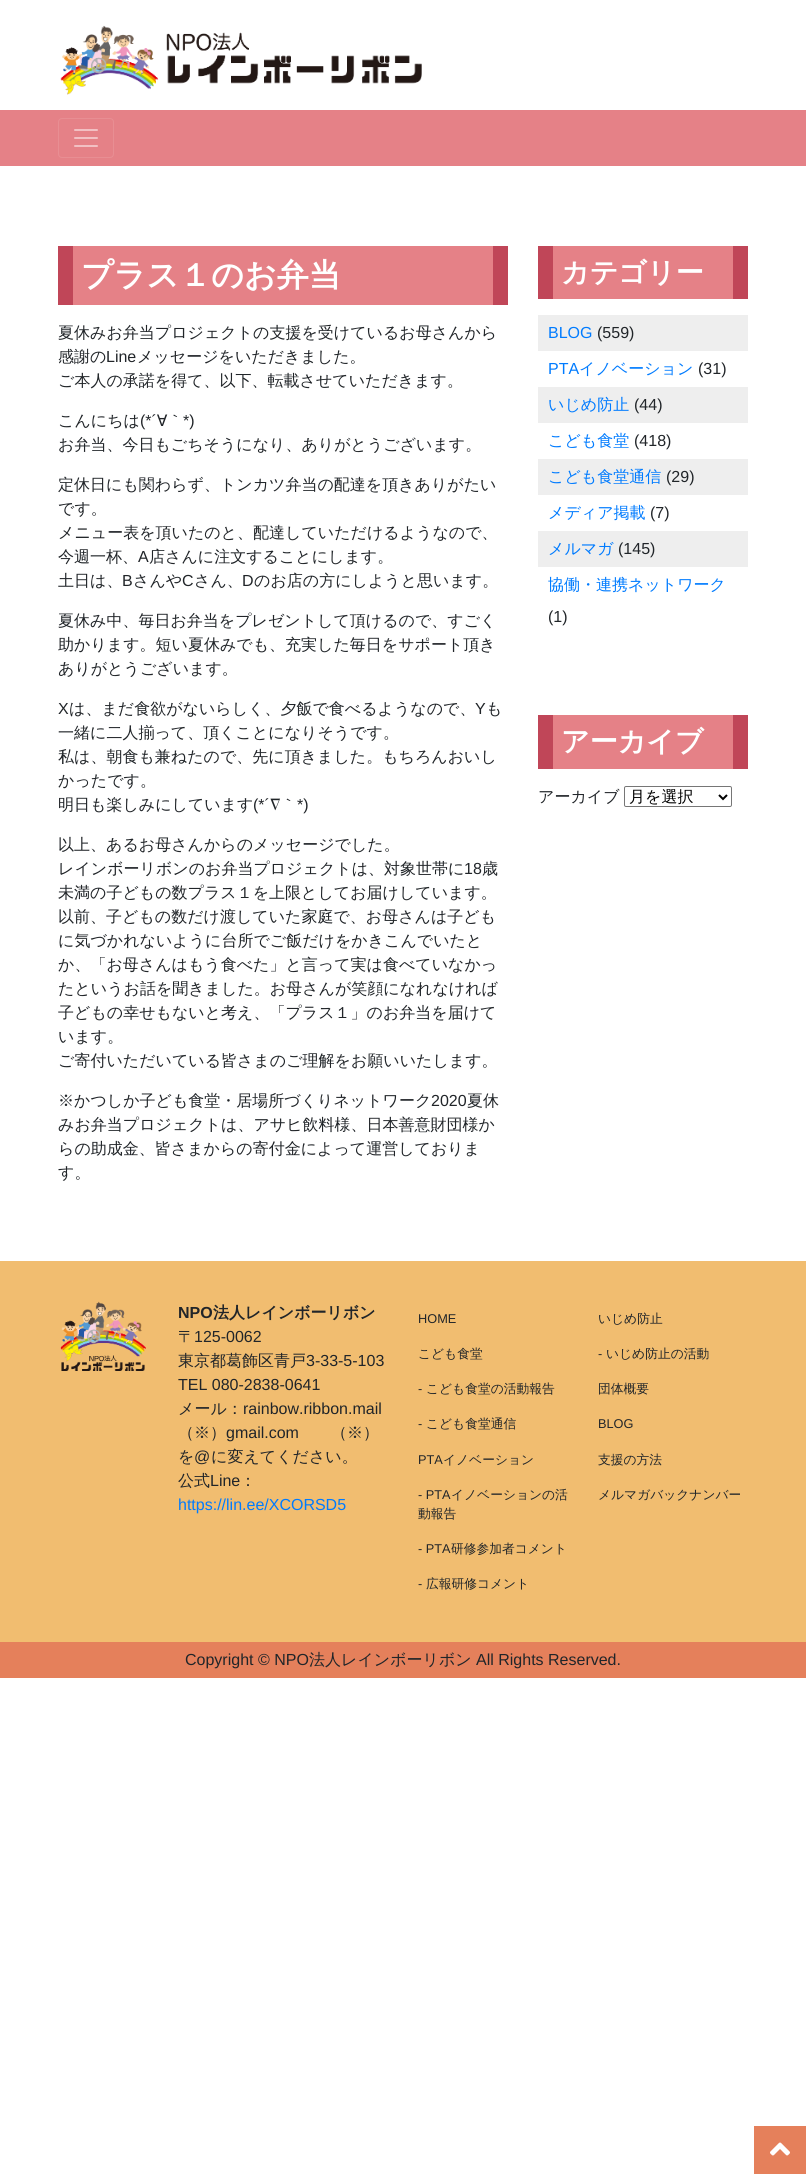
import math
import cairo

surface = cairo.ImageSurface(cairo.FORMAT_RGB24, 806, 2174)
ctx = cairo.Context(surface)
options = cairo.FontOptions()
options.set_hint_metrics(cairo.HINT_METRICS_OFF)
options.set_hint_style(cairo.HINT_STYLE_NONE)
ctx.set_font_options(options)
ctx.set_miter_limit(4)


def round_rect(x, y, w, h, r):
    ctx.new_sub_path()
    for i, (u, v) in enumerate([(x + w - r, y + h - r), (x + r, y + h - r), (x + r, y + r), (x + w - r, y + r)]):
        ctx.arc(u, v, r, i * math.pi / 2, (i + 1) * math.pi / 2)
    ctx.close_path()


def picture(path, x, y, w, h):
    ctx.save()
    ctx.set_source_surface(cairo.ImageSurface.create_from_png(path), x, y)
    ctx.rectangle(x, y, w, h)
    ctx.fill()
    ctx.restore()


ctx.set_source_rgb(1, 1, 1)
ctx.paint()
picture("img1.png", 60, 25, 362, 70)
ctx.set_source_rgb(0.898, 0.506, 0.529)
ctx.rectangle(0, 110, 806, 56)
ctx.fill()
round_rect(58.5, 118.5, 55, 39, 3.5)
ctx.set_source_rgb(0.91, 0.557, 0.576)
ctx.set_line_width(1)
ctx.stroke()
picture("img2.png", 74, 129, 24, 18)
ctx.set_source_rgb(0.898, 0.506, 0.529)
ctx.rectangle(73, 246, 420, 59)
ctx.fill()
ctx.set_source_rgb(0.753, 0.275, 0.345)
ctx.rectangle(493, 246, 15, 59)
ctx.fill()
ctx.rectangle(58, 246, 15, 59)
ctx.fill()
ctx.select_font_face("WenQuanYi Zen Hei", cairo.FONT_SLANT_NORMAL, cairo.FONT_WEIGHT_BOLD)
ctx.set_font_size(32)
ctx.set_source_rgb(1, 1, 1)
ctx.move_to(81, 286)
ctx.show_text("プラス１のお弁当")
ctx.select_font_face("WenQuanYi Zen Hei Medium")
ctx.set_font_size(16)
ctx.set_source_rgb(0.129, 0.145, 0.161)
ctx.move_to(58, 338)
ctx.show_text("夏休みお弁当プロジェクトの支援を受けているお母さんから")
ctx.move_to(58, 362)
ctx.show_text("感謝の")
ctx.select_font_face("Liberation Sans")
ctx.move_to(106, 362)
ctx.show_text("Line")
ctx.select_font_face("WenQuanYi Zen Hei Medium")
ctx.move_to(137, 362)
ctx.show_text("メッセージをいただきました。")
ctx.move_to(58, 386)
ctx.show_text("ご本人の承諾を得て、以下、転載させていただきます。")
ctx.move_to(58, 426)
ctx.show_text("こんにちは")
ctx.select_font_face("Liberation Sans")
ctx.move_to(140, 426)
ctx.show_text("(*´")
ctx.select_font_face("WenQuanYi Zen Hei Medium")
ctx.move_to(157, 426)
ctx.show_text("∀｀")
ctx.select_font_face("Liberation Sans")
ctx.move_to(183, 426)
ctx.show_text("*)")
ctx.select_font_face("WenQuanYi Zen Hei Medium")
ctx.move_to(58, 450)
ctx.show_text("お弁当、今日もごちそうになり、ありがとうございます。")
ctx.move_to(58, 490)
ctx.show_text("定休日にも関わらず、トンカツ弁当の配達を頂きありがたい")
ctx.move_to(58, 514)
ctx.show_text("です。")
ctx.move_to(58, 538)
ctx.show_text("メニュー表を頂いたのと、配達していただけるようなので、")
ctx.move_to(58, 562)
ctx.show_text("今週一杯、")
ctx.select_font_face("Liberation Sans")
ctx.move_to(138, 562)
ctx.show_text("A")
ctx.select_font_face("WenQuanYi Zen Hei Medium")
ctx.move_to(149, 562)
ctx.show_text("店さんに注文することにします。")
ctx.move_to(58, 586)
ctx.show_text("土日は、")
ctx.select_font_face("Liberation Sans")
ctx.move_to(122, 586)
ctx.show_text("B")
ctx.select_font_face("WenQuanYi Zen Hei Medium")
ctx.move_to(133, 586)
ctx.show_text("さんや")
ctx.select_font_face("Liberation Sans")
ctx.move_to(182, 586)
ctx.show_text("C")
ctx.select_font_face("WenQuanYi Zen Hei Medium")
ctx.move_to(194, 586)
ctx.show_text("さん、")
ctx.select_font_face("Liberation Sans")
ctx.move_to(242, 586)
ctx.show_text("D")
ctx.select_font_face("WenQuanYi Zen Hei Medium")
ctx.move_to(254, 586)
ctx.show_text("のお店の方にしようと思います。")
ctx.move_to(58, 626)
ctx.show_text("夏休み中、毎日お弁当をプレゼントして頂けるので、すごく")
ctx.move_to(58, 650)
ctx.show_text("助かります。短い夏休みでも、充実した毎日をサポート頂き")
ctx.move_to(58, 674)
ctx.show_text("ありがとうございます。")
ctx.select_font_face("Liberation Sans")
ctx.move_to(58, 714)
ctx.show_text("X")
ctx.select_font_face("WenQuanYi Zen Hei Medium")
ctx.move_to(69, 714)
ctx.show_text("は、まだ食欲がないらしく、夕飯で食べるようなので、")
ctx.select_font_face("Liberation Sans")
ctx.move_to(475, 714)
ctx.show_text("Y")
ctx.select_font_face("WenQuanYi Zen Hei Medium")
ctx.move_to(486, 714)
ctx.show_text("も")
ctx.move_to(58, 738)
ctx.show_text("一緒に二人揃って、頂くことになりそうです。")
ctx.move_to(58, 762)
ctx.show_text("私は、朝食も兼ねたので、先に頂きました。もちろんおいし")
ctx.move_to(58, 786)
ctx.show_text("かったです。")
ctx.move_to(58, 810)
ctx.show_text("明日も楽しみにしています")
ctx.select_font_face("Liberation Sans")
ctx.move_to(253, 810)
ctx.show_text("(*´")
ctx.select_font_face("WenQuanYi Zen Hei Medium")
ctx.move_to(270, 810)
ctx.show_text("∇｀")
ctx.select_font_face("Liberation Sans")
ctx.move_to(297, 810)
ctx.show_text("*)")
ctx.select_font_face("WenQuanYi Zen Hei Medium")
ctx.move_to(58, 850)
ctx.show_text("以上、あるお母さんからのメッセージでした。")
ctx.move_to(58, 874)
ctx.show_text("レインボーリボンのお弁当プロジェクトは、対象世帯に")
ctx.select_font_face("Liberation Sans")
ctx.move_to(464, 874)
ctx.show_text("18")
ctx.select_font_face("WenQuanYi Zen Hei Medium")
ctx.move_to(482, 874)
ctx.show_text("歳")
ctx.move_to(58, 898)
ctx.show_text("未満の子どもの数プラス１を上限としてお届けしています。")
ctx.move_to(58, 922)
ctx.show_text("以前、子どもの数だけ渡していた家庭で、お母さんは子ども")
ctx.move_to(58, 946)
ctx.show_text("に気づかれないように台所でご飯だけをかきこんでいたと")
ctx.move_to(58, 970)
ctx.show_text("か、「お母さんはもう食べた」と言って実は食べていなかっ")
ctx.move_to(58, 994)
ctx.show_text("たというお話を聞きました。お母さんが笑顔になれなければ")
ctx.move_to(58, 1018)
ctx.show_text("子どもの幸せもないと考え、「プラス１」のお弁当を届けて")
ctx.move_to(58, 1042)
ctx.show_text("います。")
ctx.move_to(58, 1066)
ctx.show_text("ご寄付いただいている皆さまのご理解をお願いいたします。")
ctx.move_to(58, 1106)
ctx.show_text("※かつしか子ども食堂・居場所づくりネットワーク")
ctx.select_font_face("Liberation Sans")
ctx.move_to(431, 1106)
ctx.show_text("2020")
ctx.select_font_face("WenQuanYi Zen Hei Medium")
ctx.move_to(467, 1106)
ctx.show_text("夏休")
ctx.move_to(58, 1130)
ctx.show_text("みお弁当プロジェクトは、アサヒ飲料様、日本善意財団様か")
ctx.move_to(58, 1154)
ctx.show_text("らの助成金、皆さまからの寄付金によって運営しておりま")
ctx.move_to(58, 1178)
ctx.show_text("す。")
ctx.set_source_rgb(0.898, 0.506, 0.529)
ctx.rectangle(553, 246, 180, 53)
ctx.fill()
ctx.set_source_rgb(0.753, 0.275, 0.345)
ctx.rectangle(733, 246, 15, 53)
ctx.fill()
ctx.rectangle(538, 246, 15, 53)
ctx.fill()
ctx.select_font_face("WenQuanYi Zen Hei", cairo.FONT_SLANT_NORMAL, cairo.FONT_WEIGHT_BOLD)
ctx.set_font_size(28)
ctx.set_source_rgb(1, 1, 1)
ctx.move_to(561, 282)
ctx.show_text("カテゴリー")
ctx.set_source_rgb(0.933, 0.933, 0.933)
ctx.rectangle(538, 315, 210, 36)
ctx.fill()
ctx.select_font_face("Liberation Sans")
ctx.set_font_size(16)
ctx.set_source_rgb(0, 0.482, 1)
ctx.move_to(548, 338)
ctx.show_text("BLOG")
ctx.set_source_rgb(0.129, 0.145, 0.161)
ctx.move_to(597, 338)
ctx.show_text("(559)")
ctx.set_source_rgb(0, 0.482, 1)
ctx.move_to(548, 374)
ctx.show_text("PTA")
ctx.select_font_face("WenQuanYi Zen Hei Medium")
ctx.move_to(579, 374)
ctx.show_text("イノベーション")
ctx.select_font_face("Liberation Sans")
ctx.set_source_rgb(0.129, 0.145, 0.161)
ctx.move_to(698, 374)
ctx.show_text("(31)")
ctx.set_source_rgb(0.933, 0.933, 0.933)
ctx.rectangle(538, 387, 210, 36)
ctx.fill()
ctx.select_font_face("WenQuanYi Zen Hei Medium")
ctx.set_source_rgb(0, 0.482, 1)
ctx.move_to(548, 410)
ctx.show_text("いじめ防止")
ctx.select_font_face("Liberation Sans")
ctx.set_source_rgb(0.129, 0.145, 0.161)
ctx.move_to(634, 410)
ctx.show_text("(44)")
ctx.select_font_face("WenQuanYi Zen Hei Medium")
ctx.set_source_rgb(0, 0.482, 1)
ctx.move_to(548, 446)
ctx.show_text("こども食堂")
ctx.select_font_face("Liberation Sans")
ctx.set_source_rgb(0.129, 0.145, 0.161)
ctx.move_to(634, 446)
ctx.show_text("(418)")
ctx.set_source_rgb(0.933, 0.933, 0.933)
ctx.rectangle(538, 459, 210, 36)
ctx.fill()
ctx.select_font_face("WenQuanYi Zen Hei Medium")
ctx.set_source_rgb(0, 0.482, 1)
ctx.move_to(548, 482)
ctx.show_text("こども食堂通信")
ctx.select_font_face("Liberation Sans")
ctx.set_source_rgb(0.129, 0.145, 0.161)
ctx.move_to(666, 482)
ctx.show_text("(29)")
ctx.select_font_face("WenQuanYi Zen Hei Medium")
ctx.set_source_rgb(0, 0.482, 1)
ctx.move_to(548, 518)
ctx.show_text("メディア掲載")
ctx.select_font_face("Liberation Sans")
ctx.set_source_rgb(0.129, 0.145, 0.161)
ctx.move_to(650, 518)
ctx.show_text("(7)")
ctx.set_source_rgb(0.933, 0.933, 0.933)
ctx.rectangle(538, 531, 210, 36)
ctx.fill()
ctx.select_font_face("WenQuanYi Zen Hei Medium")
ctx.set_source_rgb(0, 0.482, 1)
ctx.move_to(548, 554)
ctx.show_text("メルマガ")
ctx.select_font_face("Liberation Sans")
ctx.set_source_rgb(0.129, 0.145, 0.161)
ctx.move_to(618, 554)
ctx.show_text("(145)")
ctx.select_font_face("WenQuanYi Zen Hei Medium")
ctx.set_source_rgb(0, 0.482, 1)
ctx.move_to(548, 590)
ctx.show_text("協働・連携ネットワーク")
ctx.select_font_face("Liberation Sans")
ctx.set_source_rgb(0.129, 0.145, 0.161)
ctx.move_to(548, 622)
ctx.show_text("(1)")
ctx.set_source_rgb(0.898, 0.506, 0.529)
ctx.rectangle(553, 715, 180, 54)
ctx.fill()
ctx.set_source_rgb(0.753, 0.275, 0.345)
ctx.rectangle(733, 715, 15, 54)
ctx.fill()
ctx.rectangle(538, 715, 15, 54)
ctx.fill()
ctx.select_font_face("WenQuanYi Zen Hei", cairo.FONT_SLANT_NORMAL, cairo.FONT_WEIGHT_BOLD)
ctx.set_font_size(28)
ctx.set_source_rgb(1, 1, 1)
ctx.move_to(561, 751)
ctx.show_text("アーカイブ")
ctx.select_font_face("WenQuanYi Zen Hei Medium")
ctx.set_font_size(16)
ctx.set_source_rgb(0.129, 0.145, 0.161)
ctx.move_to(538, 802)
ctx.show_text("アーカイブ")
round_rect(624.5, 786.5, 107, 20, 1.5)
ctx.set_source_rgb(0.463, 0.463, 0.463)
ctx.stroke()
ctx.new_path()
ctx.move_to(719, 795)
ctx.line_to(723, 799)
ctx.line_to(727, 795)
ctx.set_source_rgb(0, 0, 0)
ctx.set_line_width(2)
ctx.stroke()
ctx.move_to(629, 802)
ctx.show_text("月を選択")
ctx.set_source_rgb(0.945, 0.741, 0.439)
ctx.rectangle(0, 1261, 806, 381)
ctx.fill()
picture("img3.png", 60, 1301, 86, 70)
ctx.select_font_face("Liberation Sans", cairo.FONT_SLANT_NORMAL, cairo.FONT_WEIGHT_BOLD)
ctx.set_source_rgb(0.129, 0.145, 0.161)
ctx.move_to(178, 1318)
ctx.show_text("NPO")
ctx.select_font_face("WenQuanYi Zen Hei", cairo.FONT_SLANT_NORMAL, cairo.FONT_WEIGHT_BOLD)
ctx.move_to(213, 1318)
ctx.show_text("法人レインボーリボン")
ctx.select_font_face("WenQuanYi Zen Hei Medium")
ctx.move_to(178, 1342)
ctx.show_text("〒")
ctx.select_font_face("Liberation Sans")
ctx.move_to(194, 1342)
ctx.show_text("125-0062")
ctx.select_font_face("WenQuanYi Zen Hei Medium")
ctx.move_to(178, 1366)
ctx.show_text("東京都葛飾区青戸")
ctx.select_font_face("Liberation Sans")
ctx.move_to(306, 1366)
ctx.show_text("3-33-5-103")
ctx.move_to(178, 1390)
ctx.show_text("TEL 080-2838-0641")
ctx.select_font_face("WenQuanYi Zen Hei Medium")
ctx.move_to(178, 1414)
ctx.show_text("メール：")
ctx.select_font_face("Liberation Sans")
ctx.move_to(243, 1414)
ctx.show_text("rainbow.ribbon.mail")
ctx.select_font_face("WenQuanYi Zen Hei Medium")
ctx.move_to(178, 1438)
ctx.show_text("（※）")
ctx.select_font_face("Liberation Sans")
ctx.move_to(226, 1438)
ctx.show_text("gmail.com")
ctx.select_font_face("WenQuanYi Zen Hei Medium")
ctx.move_to(331, 1438)
ctx.show_text("（※）")
ctx.move_to(178, 1462)
ctx.show_text("を")
ctx.select_font_face("Liberation Sans")
ctx.move_to(194, 1462)
ctx.show_text("@")
ctx.select_font_face("WenQuanYi Zen Hei Medium")
ctx.move_to(211, 1462)
ctx.show_text("に変えてください。")
ctx.move_to(178, 1486)
ctx.show_text("公式")
ctx.select_font_face("Liberation Sans")
ctx.move_to(210, 1486)
ctx.show_text("Line")
ctx.select_font_face("WenQuanYi Zen Hei Medium")
ctx.move_to(240, 1486)
ctx.show_text("：")
ctx.select_font_face("Liberation Sans")
ctx.set_source_rgb(0, 0.482, 1)
ctx.move_to(178, 1510)
ctx.show_text("https://lin.ee/XCORSD5")
ctx.set_font_size(12.75)
ctx.set_source_rgb(0.129, 0.145, 0.161)
ctx.move_to(418, 1323)
ctx.show_text("HOME")
ctx.select_font_face("WenQuanYi Zen Hei Medium")
ctx.move_to(418, 1358)
ctx.show_text("こども食堂")
ctx.select_font_face("Liberation Sans")
ctx.move_to(418, 1393)
ctx.show_text("-")
ctx.select_font_face("WenQuanYi Zen Hei Medium")
ctx.move_to(426, 1393)
ctx.show_text("こども食堂の活動報告")
ctx.select_font_face("Liberation Sans")
ctx.move_to(418, 1428)
ctx.show_text("-")
ctx.select_font_face("WenQuanYi Zen Hei Medium")
ctx.move_to(426, 1428)
ctx.show_text("こども食堂通信")
ctx.select_font_face("Liberation Sans")
ctx.move_to(418, 1464)
ctx.show_text("PTA")
ctx.select_font_face("WenQuanYi Zen Hei Medium")
ctx.move_to(443, 1464)
ctx.show_text("イノベーション")
ctx.select_font_face("Liberation Sans")
ctx.move_to(418, 1499)
ctx.show_text("- PTA")
ctx.select_font_face("WenQuanYi Zen Hei Medium")
ctx.move_to(451, 1499)
ctx.show_text("イノベーションの活")
ctx.move_to(418, 1518)
ctx.show_text("動報告")
ctx.select_font_face("Liberation Sans")
ctx.move_to(418, 1553)
ctx.show_text("- PTA")
ctx.select_font_face("WenQuanYi Zen Hei Medium")
ctx.move_to(451, 1553)
ctx.show_text("研修参加者コメント")
ctx.select_font_face("Liberation Sans")
ctx.move_to(418, 1588)
ctx.show_text("-")
ctx.select_font_face("WenQuanYi Zen Hei Medium")
ctx.move_to(426, 1588)
ctx.show_text("広報研修コメント")
ctx.move_to(598, 1323)
ctx.show_text("いじめ防止")
ctx.select_font_face("Liberation Sans")
ctx.move_to(598, 1358)
ctx.show_text("-")
ctx.select_font_face("WenQuanYi Zen Hei Medium")
ctx.move_to(606, 1358)
ctx.show_text("いじめ防止の活動")
ctx.move_to(598, 1393)
ctx.show_text("団体概要")
ctx.select_font_face("Liberation Sans")
ctx.move_to(598, 1428)
ctx.show_text("BLOG")
ctx.select_font_face("WenQuanYi Zen Hei Medium")
ctx.move_to(598, 1464)
ctx.show_text("支援の方法")
ctx.move_to(598, 1499)
ctx.show_text("メルマガバックナンバー")
ctx.set_source_rgb(0.898, 0.502, 0.357)
ctx.rectangle(0, 1642, 806, 36)
ctx.fill()
ctx.select_font_face("Liberation Sans")
ctx.set_font_size(16)
ctx.set_source_rgb(0.129, 0.145, 0.161)
ctx.move_to(185, 1665)
ctx.show_text("Copyright © NPO")
ctx.select_font_face("WenQuanYi Zen Hei Medium")
ctx.move_to(309, 1665)
ctx.show_text("法人レインボーリボン")
ctx.select_font_face("Liberation Sans")
ctx.move_to(476, 1665)
ctx.show_text("All Rights Reserved.")
ctx.set_source_rgb(0.898, 0.502, 0.357)
ctx.rectangle(754, 2126, 52, 48)
ctx.fill()
picture("img4.png", 770, 2142, 20, 14)
surface.write_to_png("page.png")
